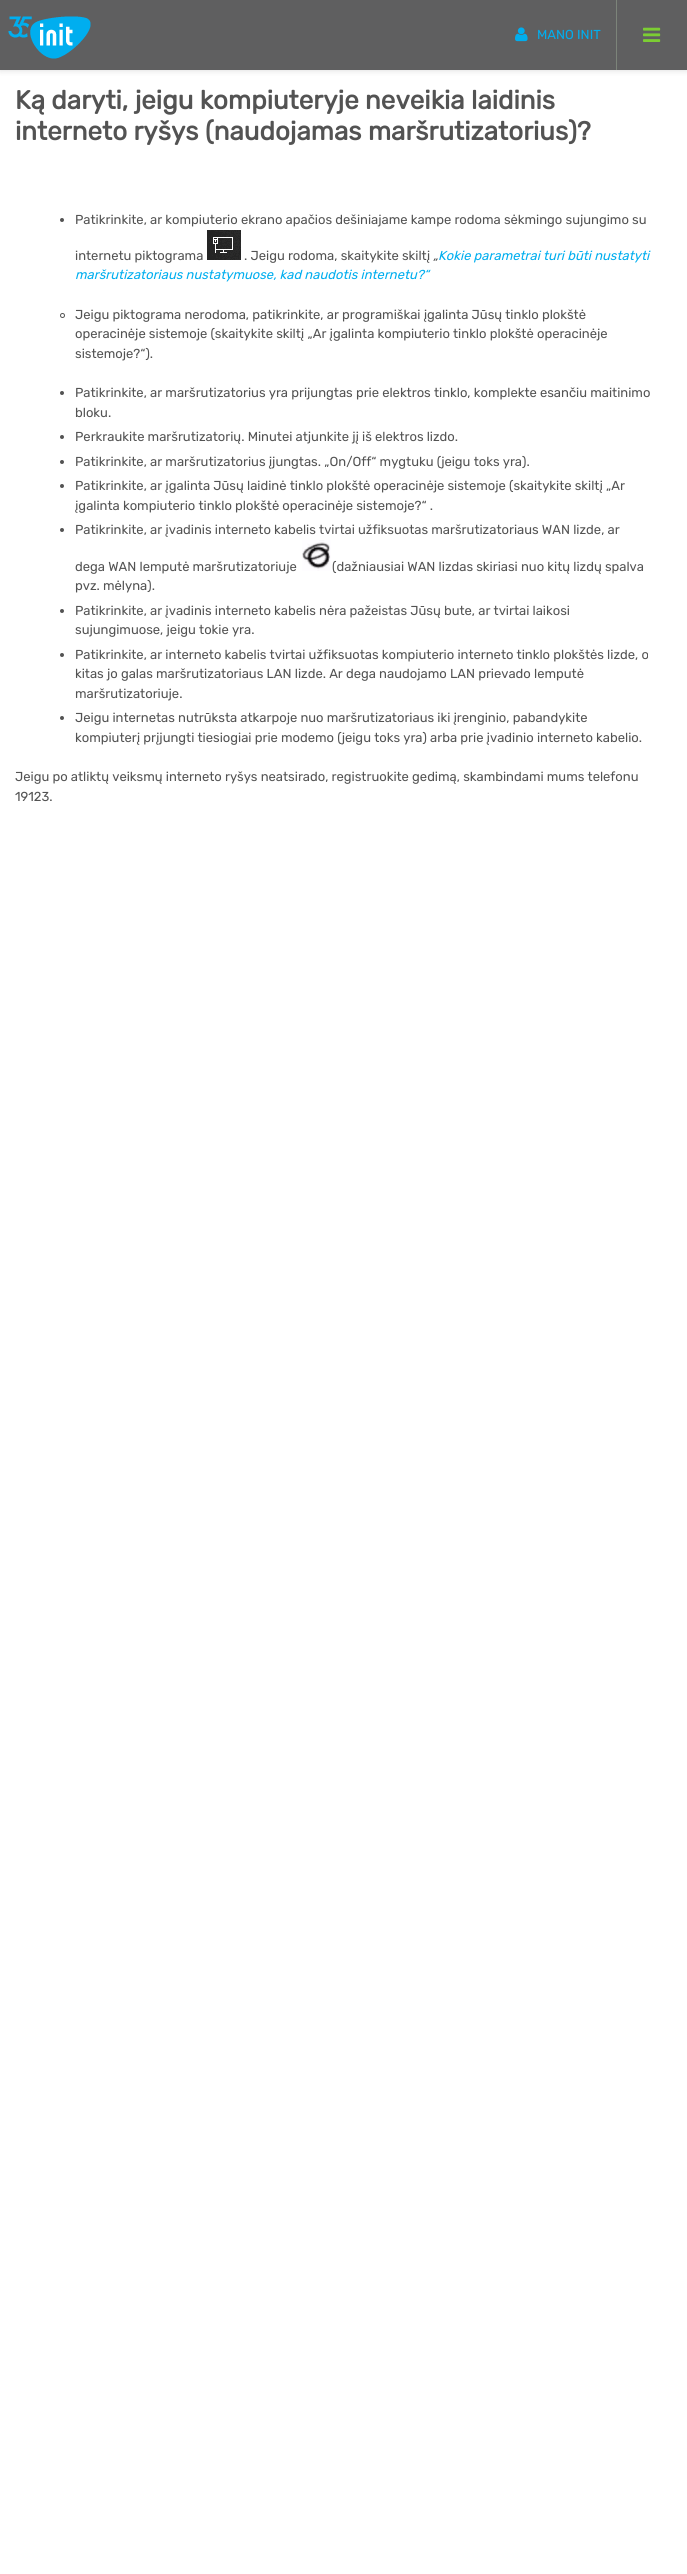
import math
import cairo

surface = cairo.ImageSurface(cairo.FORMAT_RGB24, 687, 2574)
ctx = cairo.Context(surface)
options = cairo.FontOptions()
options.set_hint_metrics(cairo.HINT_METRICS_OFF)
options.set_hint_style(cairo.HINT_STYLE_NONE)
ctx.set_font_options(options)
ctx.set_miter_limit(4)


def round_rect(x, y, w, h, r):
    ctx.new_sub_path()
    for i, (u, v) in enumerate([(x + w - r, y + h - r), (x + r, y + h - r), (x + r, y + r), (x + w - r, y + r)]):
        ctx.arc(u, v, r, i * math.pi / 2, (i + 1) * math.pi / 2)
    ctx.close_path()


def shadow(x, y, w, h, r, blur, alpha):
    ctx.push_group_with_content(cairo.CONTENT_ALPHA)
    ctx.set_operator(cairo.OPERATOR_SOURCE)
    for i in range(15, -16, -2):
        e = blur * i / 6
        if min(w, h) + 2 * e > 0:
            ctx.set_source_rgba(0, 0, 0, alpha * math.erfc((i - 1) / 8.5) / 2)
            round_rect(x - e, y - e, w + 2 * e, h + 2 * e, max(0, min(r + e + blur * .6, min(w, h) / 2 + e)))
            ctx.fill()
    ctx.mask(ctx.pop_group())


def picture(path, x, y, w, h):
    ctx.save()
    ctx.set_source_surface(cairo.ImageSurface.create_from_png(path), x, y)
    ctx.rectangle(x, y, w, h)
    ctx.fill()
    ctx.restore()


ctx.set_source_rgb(1, 1, 1)
ctx.paint()
ctx.set_source_rgb(0, 0, 0)
shadow(0, 0, 687, 70, 0, 3.5, 0.15)
ctx.set_source_rgb(0.373, 0.373, 0.376)
ctx.rectangle(0, 0, 687, 70)
ctx.fill()
picture("img1.png", 8, 16, 83, 43)
picture("img2.png", 643, 27, 18, 15)
ctx.set_source_rgb(0.486, 0.518, 0.478)
ctx.rectangle(616, 0, 1, 70)
ctx.fill()
picture("img3.png", 515, 27, 13, 15)
ctx.select_font_face("Rubik")
ctx.set_font_size(13)
ctx.set_source_rgb(0, 0.682, 0.937)
ctx.move_to(537, 39)
ctx.show_text("MANO INIT")
ctx.select_font_face("Rubik", cairo.FONT_SLANT_NORMAL, cairo.FONT_WEIGHT_BOLD)
ctx.set_font_size(26)
ctx.set_source_rgb(0.325, 0.325, 0.325)
ctx.move_to(15, 109)
ctx.show_text("Ką daryti, jeigu kompiuteryje neveikia laidinis")
ctx.move_to(15, 140)
ctx.show_text("interneto ryšys (naudojamas maršrutizatorius)?")
ctx.new_path()
ctx.arc(62, 220, 2, 0, 2 * math.pi)
ctx.fill()
ctx.select_font_face("Rubik")
ctx.set_font_size(13)
ctx.move_to(75, 224)
ctx.show_text("Patikrinkite, ar kompiuterio ekrano apačios dešiniajame kampe rodoma sėkmingo sujungimo su")
ctx.move_to(75, 260)
ctx.show_text("internetu piktograma")
picture("img4.png", 207, 230, 34, 30)
ctx.move_to(244, 260)
ctx.show_text(". Jeigu rodoma, skaitykite skiltį")
ctx.select_font_face("Rubik", cairo.FONT_SLANT_ITALIC)
ctx.move_to(433, 260)
ctx.show_text("„")
ctx.set_source_rgb(0, 0.682, 0.937)
ctx.move_to(438, 260)
ctx.show_text("Kokie parametrai turi būti nustatyti")
ctx.move_to(75, 279)
ctx.show_text("maršrutizatoriaus nustatymuose, kad naudotis internetu?“")
ctx.new_path()
ctx.arc(62.5, 315.5, 2, 0, 2 * math.pi)
ctx.set_source_rgb(0.325, 0.325, 0.325)
ctx.set_line_width(1)
ctx.stroke()
ctx.select_font_face("Rubik")
ctx.move_to(75, 319)
ctx.show_text("Jeigu piktograma nerodoma, patikrinkite, ar programiškai įgalinta Jūsų tinklo plokštė")
ctx.move_to(75, 338)
ctx.show_text("operacinėje sistemoje (skaitykite skiltį „Ar įgalinta kompiuterio tinklo plokštė operacinėje")
ctx.move_to(75, 358)
ctx.show_text("sistemoje?“).")
ctx.new_path()
ctx.arc(62, 393, 2, 0, 2 * math.pi)
ctx.fill()
ctx.move_to(75, 397)
ctx.show_text("Patikrinkite, ar maršrutizatorius yra prijungtas prie elektros tinklo, komplekte esančiu maitinimo")
ctx.move_to(75, 417)
ctx.show_text("bloku.")
ctx.new_path()
ctx.arc(62, 437, 2, 0, 2 * math.pi)
ctx.fill()
ctx.move_to(75, 441)
ctx.show_text("Perkraukite maršrutizatorių. Minutei atjunkite jį iš elektros lizdo.")
ctx.new_path()
ctx.arc(62, 462, 2, 0, 2 * math.pi)
ctx.fill()
ctx.move_to(75, 466)
ctx.show_text("Patikrinkite, ar maršrutizatorius įjungtas. „On/Off“ mygtuku (jeigu toks yra).")
ctx.new_path()
ctx.arc(62, 486, 2, 0, 2 * math.pi)
ctx.fill()
ctx.move_to(75, 490)
ctx.show_text("Patikrinkite, ar įgalinta Jūsų laidinė tinklo plokštė operacinėje sistemoje (skaitykite skiltį „Ar")
ctx.move_to(75, 510)
ctx.show_text("įgalinta kompiuterio tinklo plokštė operacinėje sistemoje?“ .")
ctx.new_path()
ctx.arc(62, 530, 2, 0, 2 * math.pi)
ctx.fill()
ctx.move_to(75, 534)
ctx.show_text("Patikrinkite, ar įvadinis interneto kabelis tvirtai užfiksuotas maršrutizatoriaus WAN lizde, ar")
ctx.move_to(75, 571)
ctx.show_text("dega WAN lemputė maršrutizatoriuje")
picture("img5.png", 302, 540, 29, 31)
ctx.move_to(332, 571)
ctx.show_text("(dažniausiai WAN lizdas skiriasi nuo kitų lizdų spalva")
ctx.move_to(75, 590)
ctx.show_text("pvz. mėlyna).")
ctx.new_path()
ctx.arc(62, 611, 2, 0, 2 * math.pi)
ctx.fill()
ctx.move_to(75, 615)
ctx.show_text("Patikrinkite, ar įvadinis interneto kabelis nėra pažeistas Jūsų bute, ar tvirtai laikosi")
ctx.move_to(75, 634)
ctx.show_text("sujungimuose, jeigu tokie yra.")
ctx.new_path()
ctx.arc(62, 655, 2, 0, 2 * math.pi)
ctx.fill()
ctx.move_to(75, 659)
ctx.show_text("Patikrinkite, ar interneto kabelis tvirtai užfiksuotas kompiuterio interneto tinklo plokštės lizde, o")
ctx.move_to(75, 678)
ctx.show_text("kitas jo galas maršrutizatoriaus LAN lizde. Ar dega naudojamo LAN prievado lemputė")
ctx.move_to(75, 698)
ctx.show_text("maršrutizatoriuje.")
ctx.new_path()
ctx.arc(62, 718, 2, 0, 2 * math.pi)
ctx.fill()
ctx.move_to(75, 722)
ctx.show_text("Jeigu internetas nutrūksta atkarpoje nuo maršrutizatoriaus iki įrenginio, pabandykite")
ctx.move_to(75, 742)
ctx.show_text("kompiuterį prįjungti tiesiogiai prie modemo (jeigu toks yra) arba prie įvadinio interneto kabelio.")
ctx.move_to(15, 781)
ctx.show_text("Jeigu po atliktų veiksmų interneto ryšys neatsirado, registruokite gedimą, skambindami mums telefonu")
ctx.move_to(15, 801)
ctx.show_text("19123.")
surface.write_to_png("page.png")
